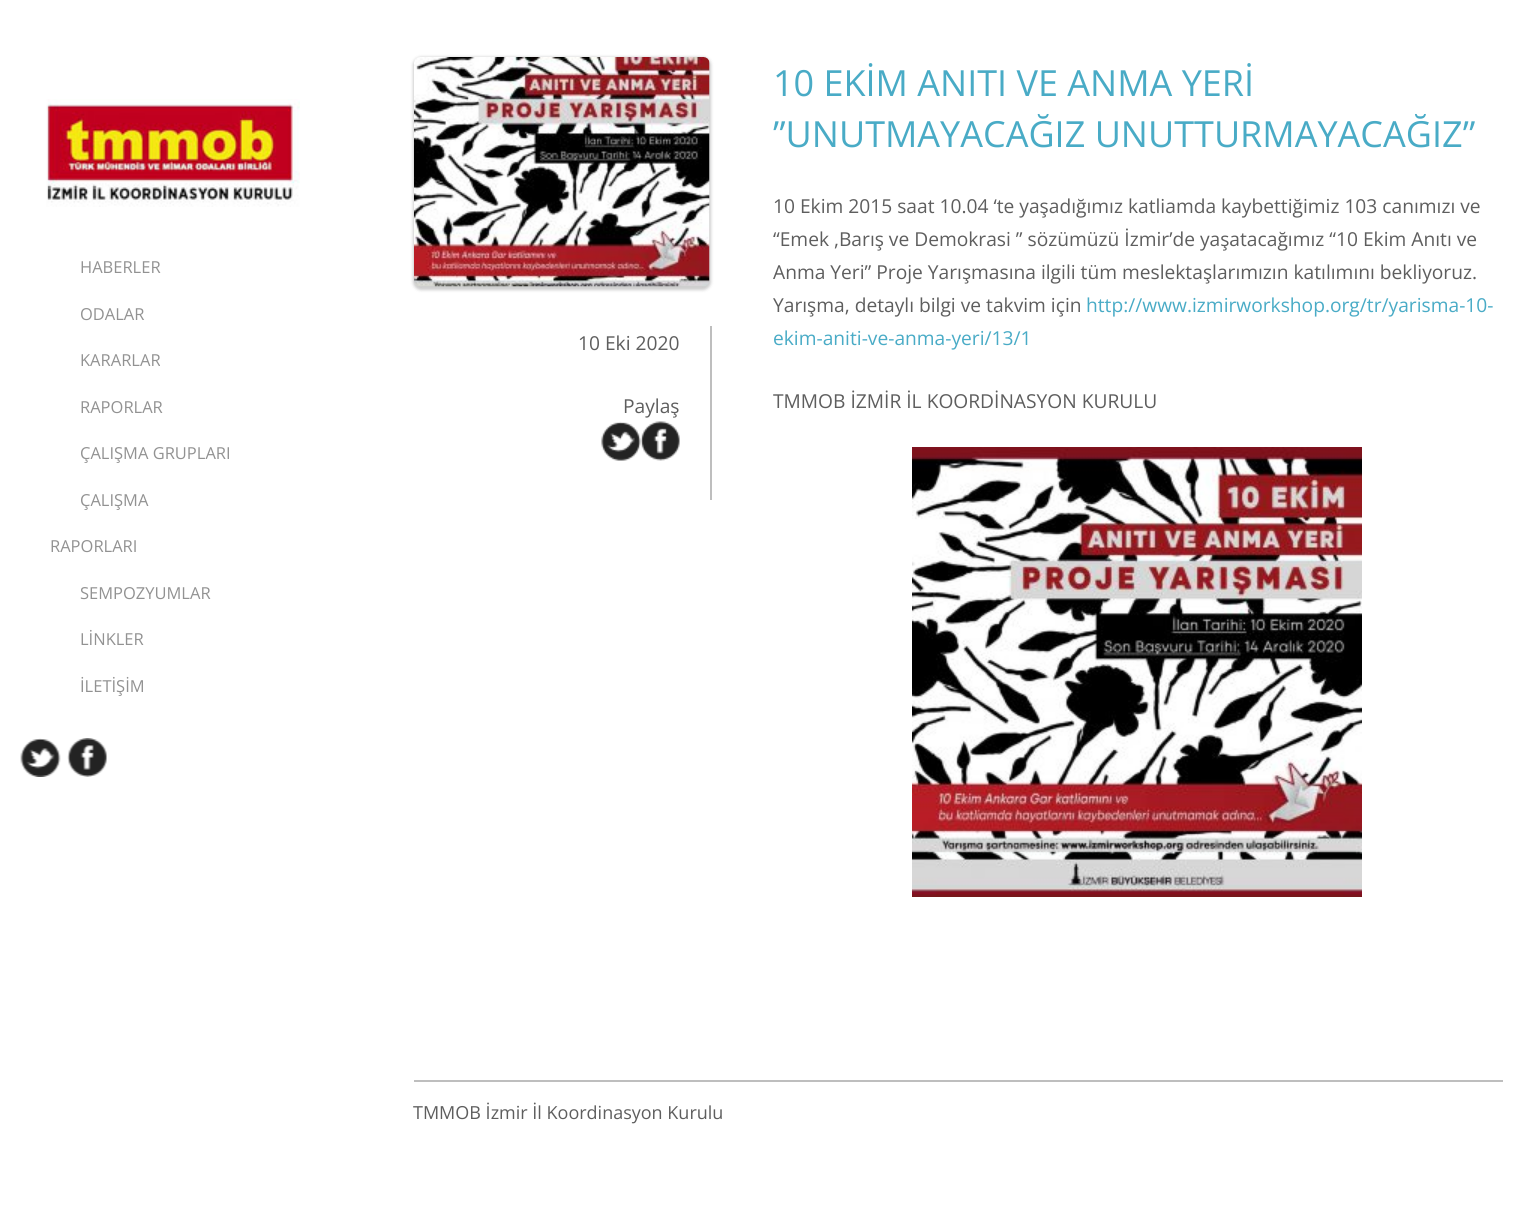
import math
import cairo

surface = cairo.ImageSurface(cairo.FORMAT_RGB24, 1537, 1224)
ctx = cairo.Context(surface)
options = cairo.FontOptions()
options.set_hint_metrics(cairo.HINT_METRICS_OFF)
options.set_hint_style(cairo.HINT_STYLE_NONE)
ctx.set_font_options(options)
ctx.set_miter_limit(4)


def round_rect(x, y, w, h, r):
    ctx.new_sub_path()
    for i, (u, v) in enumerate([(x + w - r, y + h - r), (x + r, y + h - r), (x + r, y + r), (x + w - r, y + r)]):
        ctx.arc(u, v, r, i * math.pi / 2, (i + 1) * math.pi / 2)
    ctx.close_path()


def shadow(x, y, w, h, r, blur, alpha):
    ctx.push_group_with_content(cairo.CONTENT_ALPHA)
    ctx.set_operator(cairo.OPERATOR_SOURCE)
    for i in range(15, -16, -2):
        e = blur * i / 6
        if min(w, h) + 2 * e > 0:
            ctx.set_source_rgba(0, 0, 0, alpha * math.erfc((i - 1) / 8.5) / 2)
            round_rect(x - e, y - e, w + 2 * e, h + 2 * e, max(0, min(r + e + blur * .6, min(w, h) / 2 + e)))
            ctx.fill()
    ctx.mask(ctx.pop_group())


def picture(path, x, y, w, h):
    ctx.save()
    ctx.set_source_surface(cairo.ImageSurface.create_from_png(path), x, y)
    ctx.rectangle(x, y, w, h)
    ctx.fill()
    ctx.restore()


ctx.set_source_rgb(1, 1, 1)
ctx.paint()
picture("img1.png", 46, 99, 254, 108)
ctx.select_font_face("Open Sans")
ctx.set_font_size(16.5)
ctx.set_source_rgb(0.573, 0.573, 0.573)
ctx.move_to(80, 273)
ctx.show_text("HABERLER")
ctx.move_to(80, 320)
ctx.show_text("ODALAR")
ctx.move_to(80, 366)
ctx.show_text("KARARLAR")
ctx.move_to(80, 413)
ctx.show_text("RAPORLAR")
ctx.move_to(80, 459)
ctx.show_text("ÇALIŞMA GRUPLARI")
ctx.move_to(80, 506)
ctx.show_text("ÇALIŞMA")
ctx.move_to(50, 552)
ctx.show_text("RAPORLARI")
ctx.move_to(80, 599)
ctx.show_text("SEMPOZYUMLAR")
ctx.move_to(80, 645)
ctx.show_text("LİNKLER")
ctx.move_to(80, 692)
ctx.show_text("İLETİŞİM")
picture("img2.png", 20, 738, 41, 39)
picture("img3.png", 67, 738, 40, 39)
ctx.set_source_rgb(0, 0, 0)
shadow(413, 57, 298, 233, 8, 1.5, 0.2)
picture("img4.png", 414, 57, 296, 230)
ctx.set_source_rgb(0.745, 0.745, 0.745)
ctx.rectangle(710, 326, 2, 174)
ctx.fill()
ctx.set_font_size(19.2)
ctx.set_source_rgb(0.369, 0.369, 0.369)
ctx.move_to(578, 350)
ctx.show_text("10 Eki 2020")
ctx.move_to(623, 413)
ctx.show_text("Paylaş")
picture("img5.png", 601, 421, 40, 40)
picture("img6.png", 640, 421, 40, 40)
ctx.set_font_size(36)
ctx.set_source_rgb(0.286, 0.671, 0.776)
ctx.move_to(773, 96)
ctx.show_text("10 EKİM ANITI VE ANMA YERİ")
ctx.move_to(773, 147)
ctx.show_text("”UNUTMAYACAĞIZ UNUTTURMAYACAĞIZ”")
ctx.set_font_size(19.2)
ctx.set_source_rgb(0.369, 0.369, 0.369)
ctx.move_to(773, 213)
ctx.show_text("10 Ekim 2015 saat 10.04 ‘te yaşadığımız katliamda kaybettiğimiz 103 canımızı ve")
ctx.move_to(773, 246)
ctx.show_text("“Emek ,Barış ve Demokrasi ” sözümüzü İzmir’de yaşatacağımız “10 Ekim Anıtı ve")
ctx.move_to(773, 279)
ctx.show_text("Anma Yeri” Proje Yarışmasına ilgili tüm meslektaşlarımızın katılımını bekliyoruz.")
ctx.move_to(773, 312)
ctx.show_text("Yarışma, detaylı bilgi ve takvim için")
ctx.set_source_rgb(0.286, 0.671, 0.776)
ctx.move_to(1086, 312)
ctx.show_text("http://www.izmirworkshop.org/tr/yarisma-10-")
ctx.move_to(773, 345)
ctx.show_text("ekim-aniti-ve-anma-yeri/13/1")
ctx.set_source_rgb(0.369, 0.369, 0.369)
ctx.move_to(773, 408)
ctx.show_text("TMMOB İZMİR İL KOORDİNASYON KURULU")
picture("img7.png", 912, 447, 450, 450)
ctx.set_source_rgb(0.745, 0.745, 0.745)
ctx.rectangle(414, 1080, 1089, 2)
ctx.fill()
ctx.set_font_size(18)
ctx.set_source_rgb(0.369, 0.369, 0.369)
ctx.move_to(413, 1119)
ctx.show_text("TMMOB İzmir İl Koordinasyon Kurulu")
surface.write_to_png("page.png")
